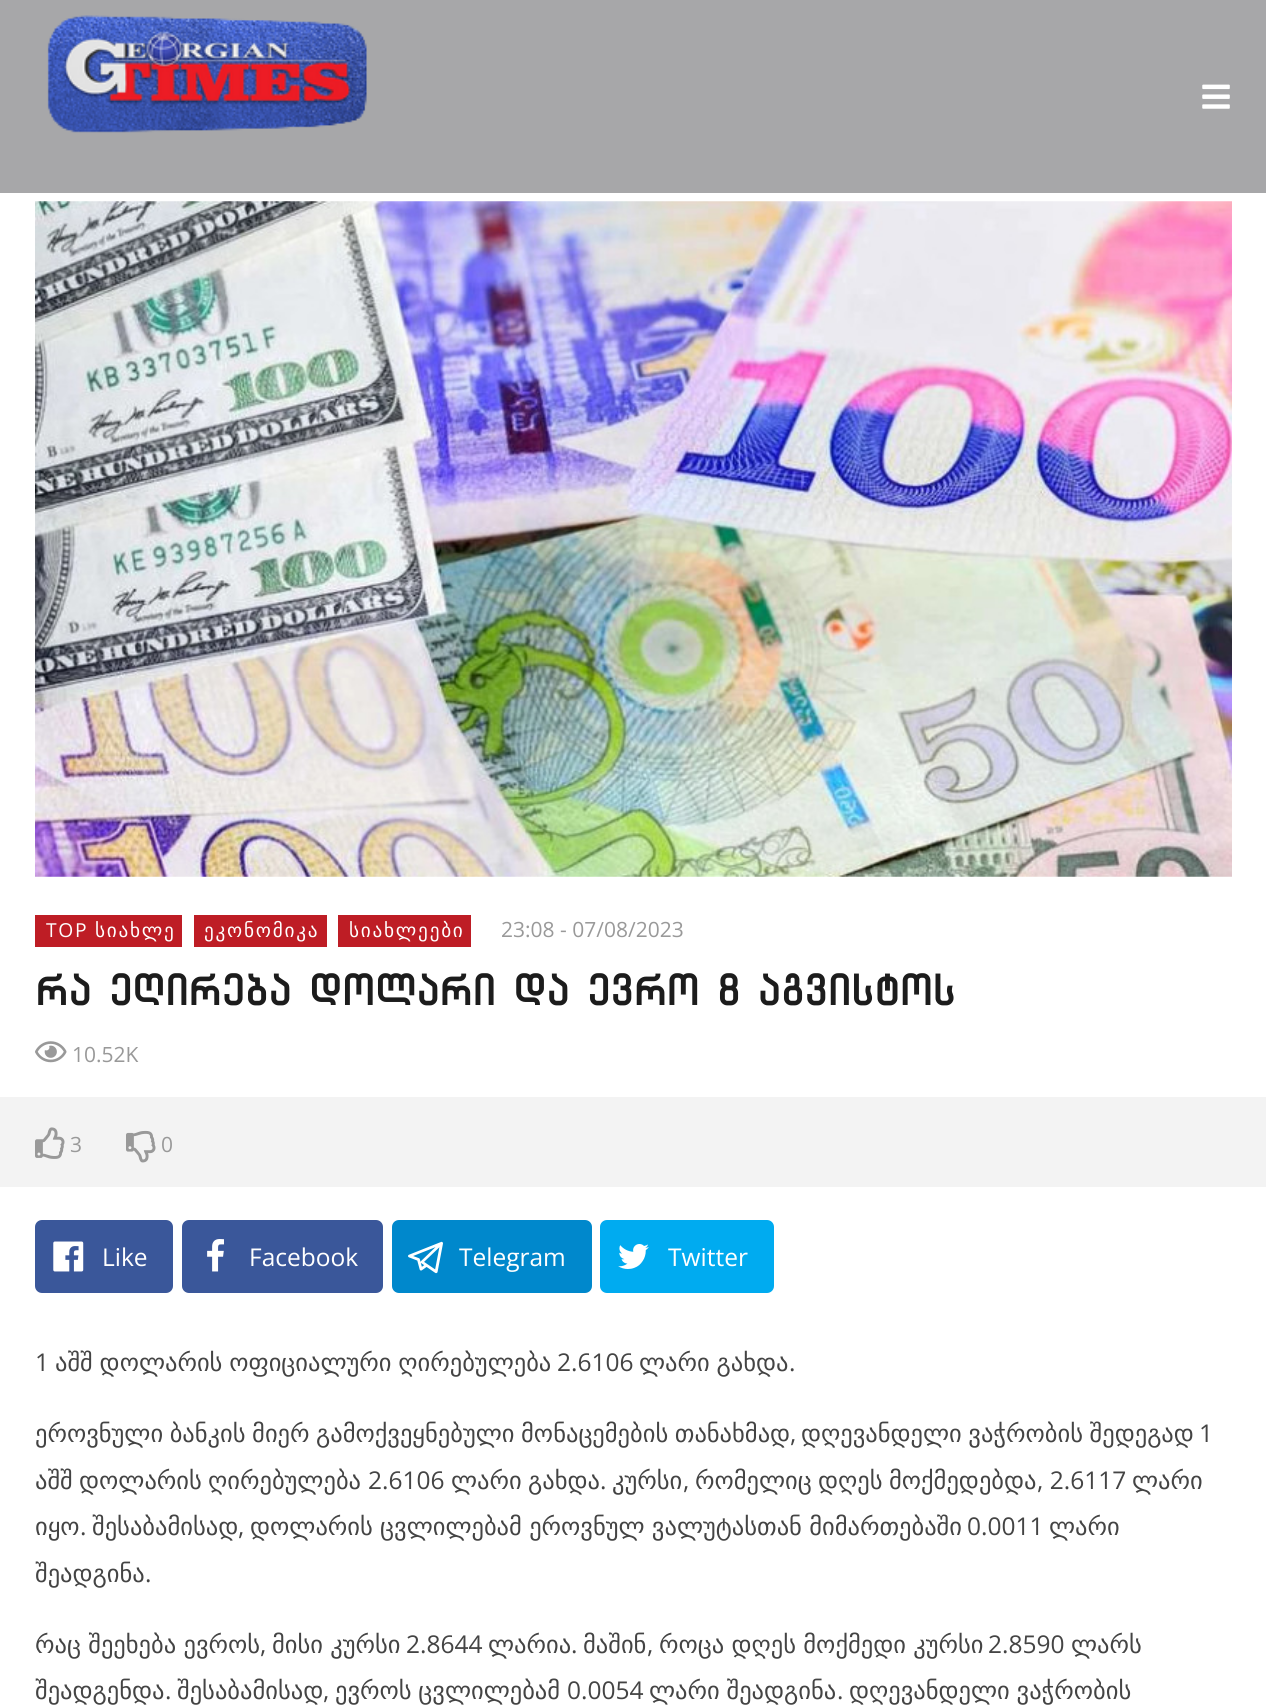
import math
import cairo

surface = cairo.ImageSurface(cairo.FORMAT_RGB24, 1266, 1707)
ctx = cairo.Context(surface)
options = cairo.FontOptions()
options.set_hint_metrics(cairo.HINT_METRICS_OFF)
options.set_hint_style(cairo.HINT_STYLE_NONE)
ctx.set_font_options(options)
ctx.set_miter_limit(4)


def spaced_text(x, y, s, letter, word):
    ctx.move_to(x, y)
    for ch in s:
        ctx.show_text(ch)
        ctx.rel_move_to(letter + word * (ch == ' '), 0)


def round_rect(x, y, w, h, r):
    ctx.new_sub_path()
    for i, (u, v) in enumerate([(x + w - r, y + h - r), (x + r, y + h - r), (x + r, y + r), (x + w - r, y + r)]):
        ctx.arc(u, v, r, i * math.pi / 2, (i + 1) * math.pi / 2)
    ctx.close_path()


def picture(path, x, y, w, h):
    ctx.save()
    ctx.set_source_surface(cairo.ImageSurface.create_from_png(path), x, y)
    ctx.rectangle(x, y, w, h)
    ctx.fill()
    ctx.restore()


ctx.set_source_rgb(1, 1, 1)
ctx.paint()
ctx.set_source_rgb(0.655, 0.655, 0.663)
ctx.rectangle(0, 0, 1266, 193)
ctx.fill()
picture("img1.png", 47, 15, 320, 118)
picture("img2.png", 1202, 84, 28, 25)
picture("img3.png", 35, 201, 1197, 676)
ctx.set_source_rgb(0.745, 0.114, 0.145)
ctx.rectangle(35, 915, 147, 32)
ctx.fill()
ctx.select_font_face("Open Sans")
ctx.set_font_size(19.25)
ctx.set_source_rgb(1, 1, 1)
spaced_text(46, 937, "TOP", 1.75, 0)
ctx.select_font_face("DejaVu Sans")
spaced_text(95, 937, "სიახლე", 1.75, 0)
ctx.set_source_rgb(0.745, 0.114, 0.145)
ctx.rectangle(194, 915, 133, 32)
ctx.fill()
ctx.set_source_rgb(1, 1, 1)
spaced_text(204, 937, "ეკონომიკა", 1.75, 0)
ctx.set_source_rgb(0.745, 0.114, 0.145)
ctx.rectangle(338, 915, 133, 32)
ctx.fill()
ctx.set_source_rgb(1, 1, 1)
spaced_text(349, 937, "სიახლეები", 1.75, 0)
ctx.select_font_face("Open Sans")
ctx.set_font_size(21)
ctx.set_source_rgb(0.6, 0.6, 0.6)
ctx.move_to(501, 937)
ctx.show_text("23:08 - 07/08/2023")
ctx.select_font_face("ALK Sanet", cairo.FONT_SLANT_NORMAL, cairo.FONT_WEIGHT_BOLD)
ctx.set_font_size(42)
ctx.set_source_rgb(0.11, 0.11, 0.11)
ctx.move_to(35, 1005)
ctx.show_text("რა ეღირება დოლარი და ევრო 8 აგვისტოს")
picture("img4.png", 35, 1041, 32, 22)
ctx.select_font_face("Open Sans")
ctx.set_font_size(21)
ctx.set_source_rgb(0.6, 0.6, 0.6)
ctx.move_to(72, 1062)
ctx.show_text("10.52K")
ctx.set_source_rgb(0.953, 0.953, 0.953)
ctx.rectangle(0, 1097, 1266, 90)
ctx.fill()
picture("img5.png", 35, 1127, 30, 32)
ctx.set_source_rgb(0.6, 0.6, 0.6)
ctx.move_to(70, 1152)
ctx.show_text("3")
picture("img6.png", 126, 1130, 30, 33)
ctx.move_to(161, 1152)
ctx.show_text("0")
ctx.set_source_rgb(0.227, 0.341, 0.604)
round_rect(35, 1220, 138, 73, 7)
ctx.fill()
picture("img7.png", 53, 1241, 31, 31)
ctx.set_font_size(24.5)
ctx.set_source_rgb(1, 1, 1)
ctx.move_to(102, 1266)
ctx.show_text("Like")
ctx.set_source_rgb(0.227, 0.341, 0.604)
round_rect(182, 1220, 201, 73, 7)
ctx.fill()
picture("img8.png", 207, 1239, 17, 33)
ctx.set_source_rgb(1, 1, 1)
ctx.move_to(249, 1266)
ctx.show_text("Facebook")
ctx.set_source_rgb(0, 0.533, 0.8)
round_rect(392, 1220, 200, 73, 7)
ctx.fill()
ctx.select_font_face("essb")
ctx.set_font_size(35)
ctx.set_source_rgb(1, 1, 1)
ctx.move_to(408, 1275)
ctx.show_text("\"")
ctx.select_font_face("Open Sans")
ctx.set_font_size(24.5)
ctx.move_to(459, 1266)
ctx.show_text("Telegram")
ctx.set_source_rgb(0, 0.671, 0.941)
round_rect(600, 1220, 174, 73, 7)
ctx.fill()
picture("img9.png", 618, 1244, 31, 25)
ctx.set_source_rgb(1, 1, 1)
ctx.move_to(668, 1266)
ctx.show_text("Twitter")
ctx.set_source_rgb(0.267, 0.267, 0.267)
ctx.move_to(35, 1371)
ctx.show_text("1")
ctx.select_font_face("DejaVu Sans")
spaced_text(55, 1371, "აშშ დოლარის ოფიციალური ღირებულება", 0, -1)
ctx.select_font_face("Open Sans")
ctx.move_to(557, 1371)
ctx.show_text("2.6106")
ctx.select_font_face("DejaVu Sans")
spaced_text(639, 1371, "ლარი გახდა", 0, -1)
ctx.select_font_face("Open Sans")
ctx.move_to(789, 1371)
ctx.show_text(".")
ctx.select_font_face("DejaVu Sans")
spaced_text(35, 1442, "ეროვნული ბანკის მიერ გამოქვეყნებული მონაცემების თანახმად", 0, -1.25)
ctx.select_font_face("Open Sans")
ctx.move_to(790, 1442)
ctx.show_text(",")
ctx.select_font_face("DejaVu Sans")
spaced_text(801, 1442, "დღევანდელი ვაჭრობის შედეგად", 0, -1.25)
ctx.select_font_face("Open Sans")
ctx.move_to(1199, 1442)
ctx.show_text("1")
ctx.select_font_face("DejaVu Sans")
ctx.move_to(35, 1489)
ctx.show_text("აშშ")
ctx.move_to(79, 1489)
ctx.show_text("დოლარის")
ctx.move_to(208, 1489)
ctx.show_text("ღირებულება")
ctx.select_font_face("Open Sans")
ctx.move_to(368, 1489)
ctx.show_text("2.6106")
ctx.select_font_face("DejaVu Sans")
ctx.move_to(451, 1489)
ctx.show_text("ლარი")
ctx.move_to(528, 1489)
ctx.show_text("გახდა")
ctx.select_font_face("Open Sans")
ctx.move_to(600, 1489)
ctx.show_text(".")
ctx.select_font_face("DejaVu Sans")
ctx.move_to(612, 1489)
ctx.show_text("კურსი")
ctx.select_font_face("Open Sans")
ctx.move_to(683, 1489)
ctx.show_text(",")
ctx.select_font_face("DejaVu Sans")
ctx.move_to(695, 1489)
ctx.show_text("რომელიც")
ctx.move_to(818, 1489)
ctx.show_text("დღეს")
ctx.move_to(889, 1489)
ctx.show_text("მოქმედებდა")
ctx.select_font_face("Open Sans")
ctx.move_to(1037, 1489)
ctx.show_text(", 2.6117")
ctx.select_font_face("DejaVu Sans")
ctx.move_to(1132, 1489)
ctx.show_text("ლარი")
ctx.move_to(35, 1535)
ctx.show_text("იყო")
ctx.select_font_face("Open Sans")
ctx.move_to(80, 1535)
ctx.show_text(".")
ctx.select_font_face("DejaVu Sans")
ctx.move_to(92, 1535)
ctx.show_text("შესაბამისად")
ctx.select_font_face("Open Sans")
ctx.move_to(238, 1535)
ctx.show_text(",")
ctx.select_font_face("DejaVu Sans")
spaced_text(250, 1535, "დოლარის ცვლილებამ ეროვნულ ვალუტასთან მიმართებაში", 0, -0.5)
ctx.select_font_face("Open Sans")
ctx.move_to(967, 1535)
ctx.show_text("0.0011")
ctx.select_font_face("DejaVu Sans")
ctx.move_to(1049, 1535)
ctx.show_text("ლარი")
ctx.move_to(35, 1582)
ctx.show_text("შეადგინა")
ctx.select_font_face("Open Sans")
ctx.move_to(145, 1582)
ctx.show_text(".")
ctx.select_font_face("DejaVu Sans")
spaced_text(35, 1653, "რაც შეეხება ევროს", 0, -0.5)
ctx.select_font_face("Open Sans")
ctx.move_to(260, 1653)
ctx.show_text(",")
ctx.select_font_face("DejaVu Sans")
spaced_text(272, 1653, "მისი კურსი", 0, -0.5)
ctx.select_font_face("Open Sans")
ctx.move_to(406, 1653)
ctx.show_text("2.8644")
ctx.select_font_face("DejaVu Sans")
ctx.move_to(488, 1653)
ctx.show_text("ლარია")
ctx.select_font_face("Open Sans")
ctx.move_to(571, 1653)
ctx.show_text(".")
ctx.select_font_face("DejaVu Sans")
ctx.move_to(583, 1653)
ctx.show_text("მაშინ")
ctx.select_font_face("Open Sans")
ctx.move_to(647, 1653)
ctx.show_text(",")
ctx.select_font_face("DejaVu Sans")
spaced_text(659, 1653, "როცა დღეს მოქმედი კურსი", 0, -0.5)
ctx.select_font_face("Open Sans")
ctx.move_to(988, 1653)
ctx.show_text("2.8590")
ctx.select_font_face("DejaVu Sans")
ctx.move_to(1071, 1653)
ctx.show_text("ლარს")
ctx.move_to(35, 1699)
ctx.show_text("შეადგენდა")
ctx.select_font_face("Open Sans")
ctx.move_to(165, 1699)
ctx.show_text(".")
ctx.select_font_face("DejaVu Sans")
ctx.move_to(177, 1699)
ctx.show_text("შესაბამისად")
ctx.select_font_face("Open Sans")
ctx.move_to(323, 1699)
ctx.show_text(",")
ctx.select_font_face("DejaVu Sans")
spaced_text(335, 1699, "ევროს ცვლილებამ", 0, -1)
ctx.select_font_face("Open Sans")
ctx.move_to(567, 1699)
ctx.show_text("0.0054")
ctx.select_font_face("DejaVu Sans")
spaced_text(649, 1699, "ლარი შეადგინა", 0, -1)
ctx.select_font_face("Open Sans")
ctx.move_to(837, 1699)
ctx.show_text(".")
ctx.select_font_face("DejaVu Sans")
spaced_text(849, 1699, "დღევანდელი ვაჭრობის", 0, -1)
surface.write_to_png("page.png")
